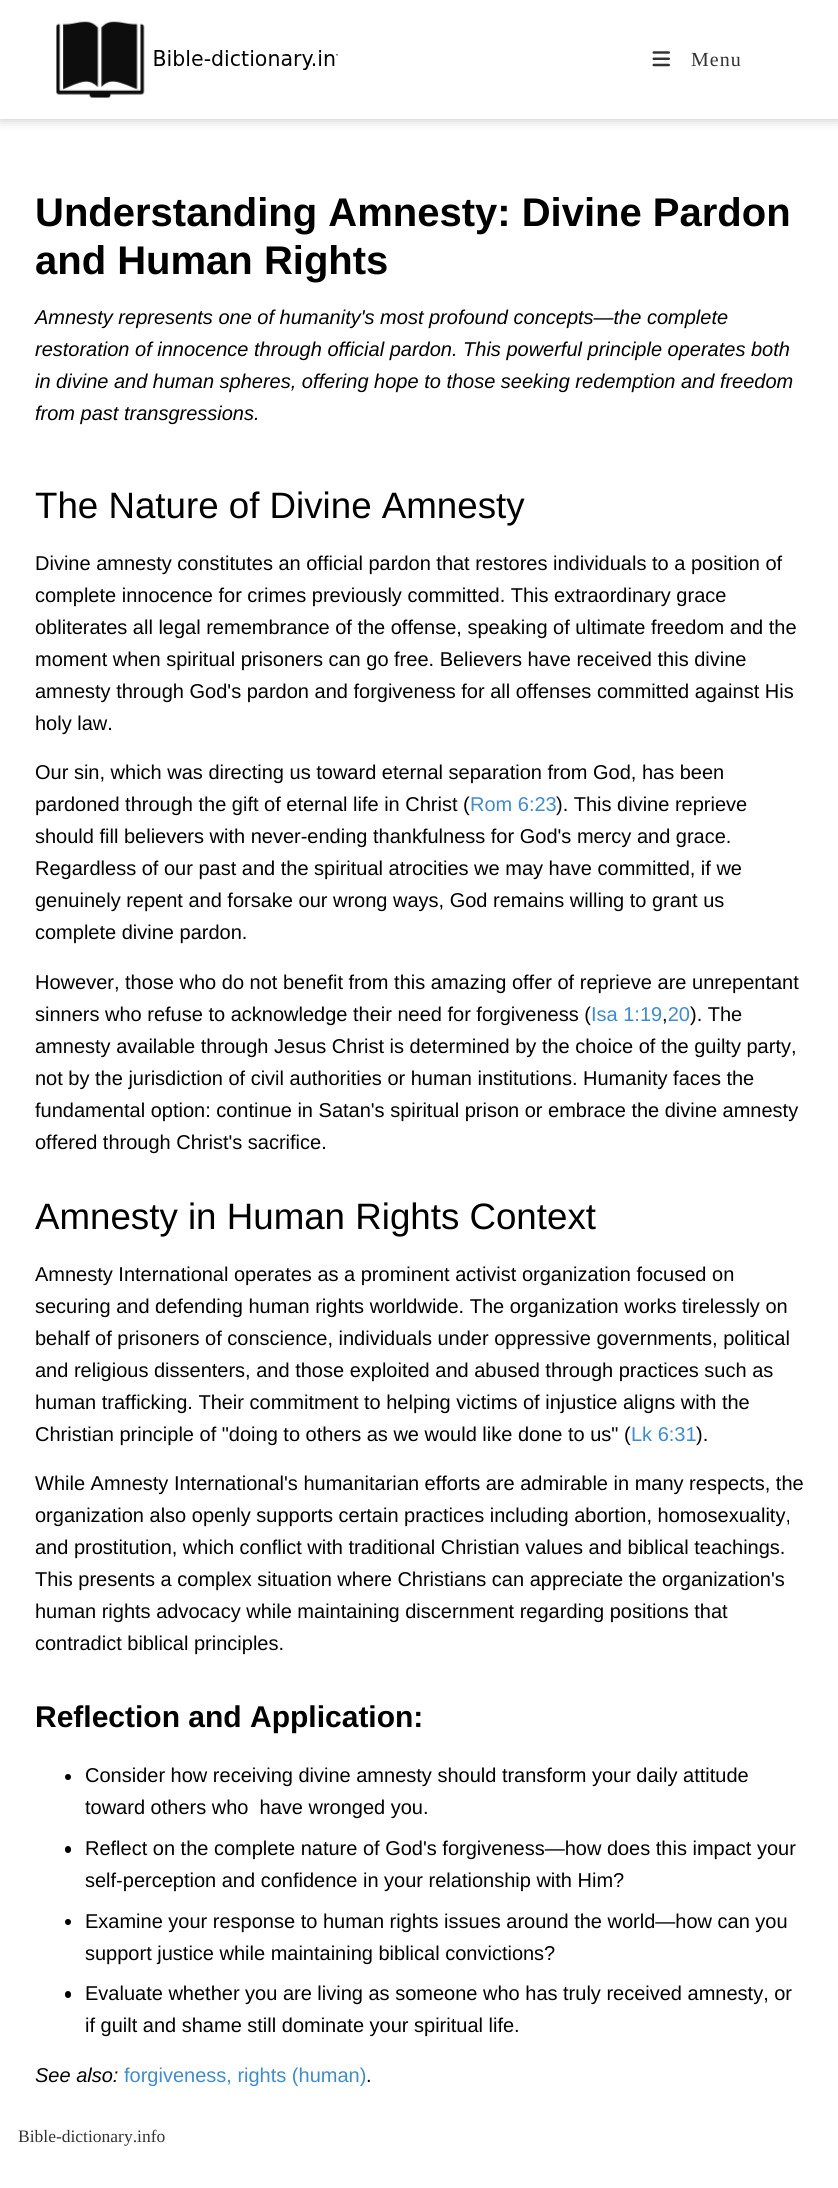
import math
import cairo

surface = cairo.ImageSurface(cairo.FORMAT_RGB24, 838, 2188)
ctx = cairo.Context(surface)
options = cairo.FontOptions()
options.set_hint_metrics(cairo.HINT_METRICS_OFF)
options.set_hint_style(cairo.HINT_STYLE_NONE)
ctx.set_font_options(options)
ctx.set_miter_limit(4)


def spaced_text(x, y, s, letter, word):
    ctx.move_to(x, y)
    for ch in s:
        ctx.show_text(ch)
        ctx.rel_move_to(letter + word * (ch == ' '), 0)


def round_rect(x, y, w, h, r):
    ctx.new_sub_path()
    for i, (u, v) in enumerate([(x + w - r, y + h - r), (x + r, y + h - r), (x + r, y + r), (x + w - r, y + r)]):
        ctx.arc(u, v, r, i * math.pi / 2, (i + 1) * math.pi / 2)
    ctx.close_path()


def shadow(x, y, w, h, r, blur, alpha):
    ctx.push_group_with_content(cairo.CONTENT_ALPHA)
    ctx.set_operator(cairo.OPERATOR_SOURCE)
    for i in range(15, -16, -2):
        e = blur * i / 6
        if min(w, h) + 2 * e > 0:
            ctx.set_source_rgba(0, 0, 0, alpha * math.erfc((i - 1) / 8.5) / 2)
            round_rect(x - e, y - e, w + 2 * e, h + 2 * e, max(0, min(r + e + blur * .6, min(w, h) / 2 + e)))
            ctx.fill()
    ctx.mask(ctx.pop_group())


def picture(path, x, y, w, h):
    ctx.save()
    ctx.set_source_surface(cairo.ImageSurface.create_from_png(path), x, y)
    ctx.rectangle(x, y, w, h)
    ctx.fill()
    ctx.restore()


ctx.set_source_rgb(1, 1, 1)
ctx.paint()
ctx.save()
ctx.set_fill_rule(cairo.FILL_RULE_EVEN_ODD)
ctx.new_path()
ctx.move_to(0, 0)
ctx.line_to(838, 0)
ctx.line_to(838, 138)
ctx.line_to(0, 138)
ctx.close_path()
ctx.move_to(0, 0)
ctx.line_to(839, 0)
ctx.line_to(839, 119)
ctx.line_to(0, 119)
ctx.close_path()
ctx.clip()
ctx.set_source_rgb(0, 0, 0)
shadow(0, 0, 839, 119, 0, 6, 0.25)
ctx.restore()
ctx.set_source_rgb(1, 1, 1)
ctx.rectangle(38, 118, 763, 1)
ctx.fill()
picture("img1.png", 56, 21, 282, 77)
picture("img2.png", 652, 51, 18, 16)
ctx.select_font_face("Liberation Serif")
ctx.set_font_size(20)
ctx.set_source_rgb(0.2, 0.2, 0.2)
spaced_text(691, 66, "Menu", 1, 0)
ctx.select_font_face("Liberation Sans", cairo.FONT_SLANT_NORMAL, cairo.FONT_WEIGHT_BOLD)
ctx.set_font_size(40)
ctx.set_source_rgb(0, 0, 0)
ctx.move_to(35, 226)
ctx.show_text("Understanding Amnesty: Divine Pardon")
ctx.move_to(35, 274)
ctx.show_text("and Human Rights")
ctx.select_font_face("Liberation Sans", cairo.FONT_SLANT_ITALIC)
ctx.set_font_size(20)
ctx.move_to(35, 324)
ctx.show_text("Amnesty represents one of humanity's most profound concepts—the complete")
ctx.move_to(35, 356)
ctx.show_text("restoration of innocence through official pardon. This powerful principle operates both")
ctx.move_to(35, 388)
ctx.show_text("in divine and human spheres, offering hope to those seeking redemption and freedom")
ctx.move_to(35, 420)
ctx.show_text("from past transgressions.")
ctx.select_font_face("Liberation Sans")
ctx.set_font_size(36.7)
ctx.move_to(35, 518)
ctx.show_text("The Nature of Divine Amnesty")
ctx.set_font_size(20)
ctx.move_to(35, 570)
ctx.show_text("Divine amnesty constitutes an official pardon that restores individuals to a position of")
ctx.move_to(35, 602)
ctx.show_text("complete innocence for crimes previously committed. This extraordinary grace")
ctx.move_to(35, 634)
ctx.show_text("obliterates all legal remembrance of the offense, speaking of ultimate freedom and the")
ctx.move_to(35, 666)
ctx.show_text("moment when spiritual prisoners can go free. Believers have received this divine")
ctx.move_to(35, 698)
ctx.show_text("amnesty through God's pardon and forgiveness for all offenses committed against His")
ctx.move_to(35, 730)
ctx.show_text("holy law.")
ctx.move_to(35, 779)
ctx.show_text("Our sin, which was directing us toward eternal separation from God, has been")
ctx.move_to(35, 811)
ctx.show_text("pardoned through the gift of eternal life in Christ (")
ctx.set_source_rgb(0.251, 0.545, 0.788)
ctx.move_to(470, 811)
ctx.show_text("Rom 6:23")
ctx.set_source_rgb(0, 0, 0)
ctx.move_to(556, 811)
ctx.show_text("). This divine reprieve")
ctx.move_to(35, 843)
ctx.show_text("should fill believers with never-ending thankfulness for God's mercy and grace.")
ctx.move_to(35, 875)
ctx.show_text("Regardless of our past and the spiritual atrocities we may have committed, if we")
ctx.move_to(35, 907)
ctx.show_text("genuinely repent and forsake our wrong ways, God remains willing to grant us")
ctx.move_to(35, 939)
ctx.show_text("complete divine pardon.")
ctx.move_to(35, 989)
ctx.show_text("However, those who do not benefit from this amazing offer of reprieve are unrepentant")
ctx.move_to(35, 1021)
ctx.show_text("sinners who refuse to acknowledge their need for forgiveness (")
ctx.set_source_rgb(0.251, 0.545, 0.788)
ctx.move_to(591, 1021)
ctx.show_text("Isa 1:19 20")
ctx.set_source_rgb(0, 0, 0)
ctx.move_to(690, 1021)
ctx.show_text("). The")
ctx.move_to(662, 1021)
ctx.show_text(",")
ctx.move_to(35, 1053)
ctx.show_text("amnesty available through Jesus Christ is determined by the choice of the guilty party,")
ctx.move_to(35, 1085)
ctx.show_text("not by the jurisdiction of civil authorities or human institutions. Humanity faces the")
ctx.move_to(35, 1117)
ctx.show_text("fundamental option: continue in Satan's spiritual prison or embrace the divine amnesty")
ctx.move_to(35, 1149)
ctx.show_text("offered through Christ's sacrifice.")
ctx.set_font_size(36.7)
ctx.move_to(35, 1229)
ctx.show_text("Amnesty in Human Rights Context")
ctx.set_font_size(20)
ctx.move_to(35, 1281)
ctx.show_text("Amnesty International operates as a prominent activist organization focused on")
ctx.move_to(35, 1313)
ctx.show_text("securing and defending human rights worldwide. The organization works tirelessly on")
ctx.move_to(35, 1345)
ctx.show_text("behalf of prisoners of conscience, individuals under oppressive governments, political")
ctx.move_to(35, 1377)
ctx.show_text("and religious dissenters, and those exploited and abused through practices such as")
ctx.move_to(35, 1409)
ctx.show_text("human trafficking. Their commitment to helping victims of injustice aligns with the")
ctx.move_to(35, 1441)
ctx.show_text("Christian principle of \"doing to others as we would like done to us\" (")
ctx.set_source_rgb(0.251, 0.545, 0.788)
ctx.move_to(631, 1441)
ctx.show_text("Lk 6:31")
ctx.set_source_rgb(0, 0, 0)
ctx.move_to(696, 1441)
ctx.show_text(").")
ctx.move_to(35, 1490)
ctx.show_text("While Amnesty International's humanitarian efforts are admirable in many respects, the")
ctx.move_to(35, 1522)
ctx.show_text("organization also openly supports certain practices including abortion, homosexuality,")
ctx.move_to(35, 1554)
ctx.show_text("and prostitution, which conflict with traditional Christian values and biblical teachings.")
ctx.move_to(35, 1586)
ctx.show_text("This presents a complex situation where Christians can appreciate the organization's")
ctx.move_to(35, 1618)
ctx.show_text("human rights advocacy while maintaining discernment regarding positions that")
ctx.move_to(35, 1650)
ctx.show_text("contradict biblical principles.")
ctx.select_font_face("Liberation Sans", cairo.FONT_SLANT_NORMAL, cairo.FONT_WEIGHT_BOLD)
ctx.set_font_size(30)
ctx.move_to(35, 1727)
ctx.show_text("Reflection and Application:")
ctx.new_path()
ctx.arc(68, 1777, 3, 0, 2 * math.pi)
ctx.fill()
ctx.select_font_face("Liberation Sans")
ctx.set_font_size(20)
ctx.move_to(85, 1782)
ctx.show_text("Consider how receiving divine amnesty should transform your daily attitude")
ctx.move_to(85, 1814)
ctx.show_text("toward others who  have wronged you.")
round_rect(65, 1846, 6, 7, 3)
ctx.fill()
ctx.move_to(85, 1855)
ctx.show_text("Reflect on the complete nature of God's forgiveness—how does this impact your")
ctx.move_to(85, 1887)
ctx.show_text("self-perception and confidence in your relationship with Him?")
ctx.new_path()
ctx.arc(68, 1922, 3, 0, 2 * math.pi)
ctx.fill()
ctx.move_to(85, 1928)
ctx.show_text("Examine your response to human rights issues around the world—how can you")
ctx.move_to(85, 1960)
ctx.show_text("support justice while maintaining biblical convictions?")
round_rect(65, 1991, 6, 7, 3)
ctx.fill()
ctx.move_to(85, 2000)
ctx.show_text("Evaluate whether you are living as someone who has truly received amnesty, or")
ctx.move_to(85, 2032)
ctx.show_text("if guilt and shame still dominate your spiritual life.")
ctx.select_font_face("Liberation Sans", cairo.FONT_SLANT_ITALIC)
ctx.move_to(35, 2082)
ctx.show_text("See also:")
ctx.select_font_face("Liberation Sans")
ctx.set_source_rgb(0.251, 0.545, 0.788)
ctx.move_to(124, 2082)
ctx.show_text("forgiveness, rights (human)")
ctx.set_source_rgb(0, 0, 0)
ctx.move_to(366, 2082)
ctx.show_text(".")
ctx.select_font_face("Liberation Serif")
ctx.set_font_size(17.5)
ctx.set_source_rgb(0.2, 0.2, 0.2)
ctx.move_to(18, 2142)
ctx.show_text("Bible-dictionary.info")
surface.write_to_png("page.png")
